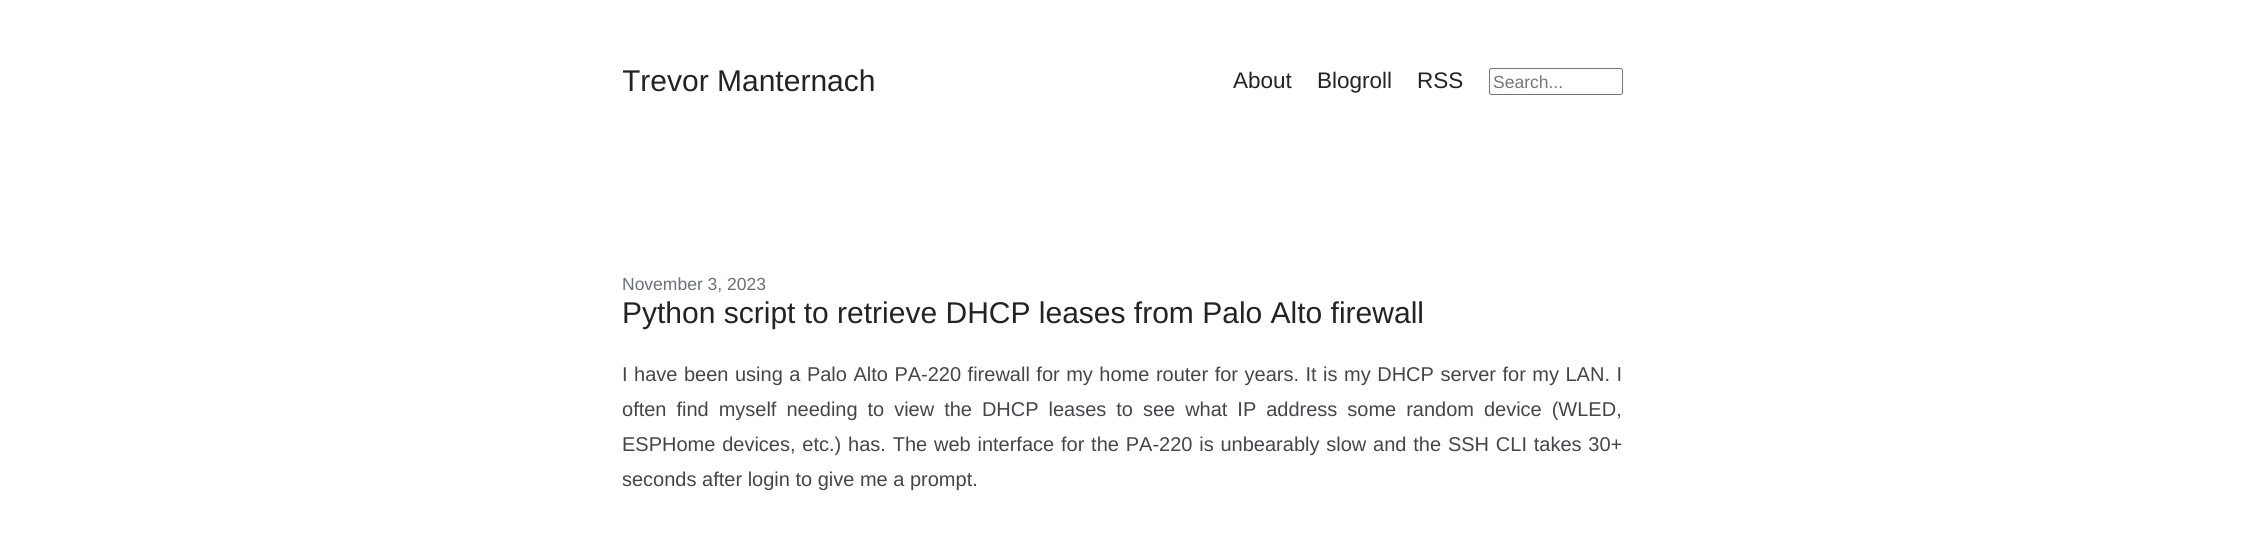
import math
import cairo

surface = cairo.ImageSurface(cairo.FORMAT_RGB24, 2243, 536)
ctx = cairo.Context(surface)
options = cairo.FontOptions()
options.set_hint_metrics(cairo.HINT_METRICS_OFF)
options.set_hint_style(cairo.HINT_STYLE_NONE)
ctx.set_font_options(options)
ctx.set_miter_limit(4)


def spaced_text(x, y, s, letter, word):
    ctx.move_to(x, y)
    for ch in s:
        ctx.show_text(ch)
        ctx.rel_move_to(letter + word * (ch == ' '), 0)


def round_rect(x, y, w, h, r):
    ctx.new_sub_path()
    for i, (u, v) in enumerate([(x + w - r, y + h - r), (x + r, y + h - r), (x + r, y + r), (x + w - r, y + r)]):
        ctx.arc(u, v, r, i * math.pi / 2, (i + 1) * math.pi / 2)
    ctx.close_path()


ctx.set_source_rgb(1, 1, 1)
ctx.paint()
ctx.save()
ctx.rectangle(623, 50, 500, 63)
ctx.clip()
ctx.select_font_face("Liberation Sans")
ctx.set_font_size(30)
ctx.set_source_rgb(0.133, 0.137, 0.141)
ctx.move_to(622, 91)
ctx.show_text("Trevor Manternach")
ctx.restore()
ctx.select_font_face("Liberation Sans")
ctx.set_font_size(22.5)
ctx.set_source_rgb(0.133, 0.137, 0.141)
ctx.move_to(1233, 88)
ctx.show_text("About")
ctx.move_to(1317, 88)
ctx.show_text("Blogroll")
ctx.move_to(1417, 88)
ctx.show_text("RSS")
round_rect(1489.5, 68.5, 133, 26, 2)
ctx.set_source_rgb(0.463, 0.463, 0.463)
ctx.set_line_width(1)
ctx.stroke()
ctx.set_font_size(17.5)
ctx.set_source_rgb(0.459, 0.459, 0.459)
ctx.move_to(1493, 88)
ctx.show_text("Search...")
ctx.set_source_rgb(0.412, 0.439, 0.478)
ctx.move_to(622, 290)
ctx.show_text("November 3, 2023")
ctx.set_font_size(30)
ctx.set_source_rgb(0.133, 0.137, 0.141)
ctx.move_to(622, 323)
ctx.show_text("Python script to retrieve DHCP leases from Palo Alto firewall")
ctx.set_font_size(20)
ctx.set_source_rgb(0.259, 0.275, 0.298)
spaced_text(622, 381, "I have been using a Palo Alto PA-220 firewall for my home router for years. It is my DHCP server for my LAN. I", 0, 0.95)
spaced_text(622, 416, "often find myself needing to view the DHCP leases to see what IP address some random device (WLED,", 0, 4.4)
spaced_text(622, 451, "ESPHome devices, etc.) has. The web interface for the PA-220 is unbearably slow and the SSH CLI takes 30+", 0, 1.25)
ctx.move_to(622, 486)
ctx.show_text("seconds after login to give me a prompt.")
surface.write_to_png("page.png")
